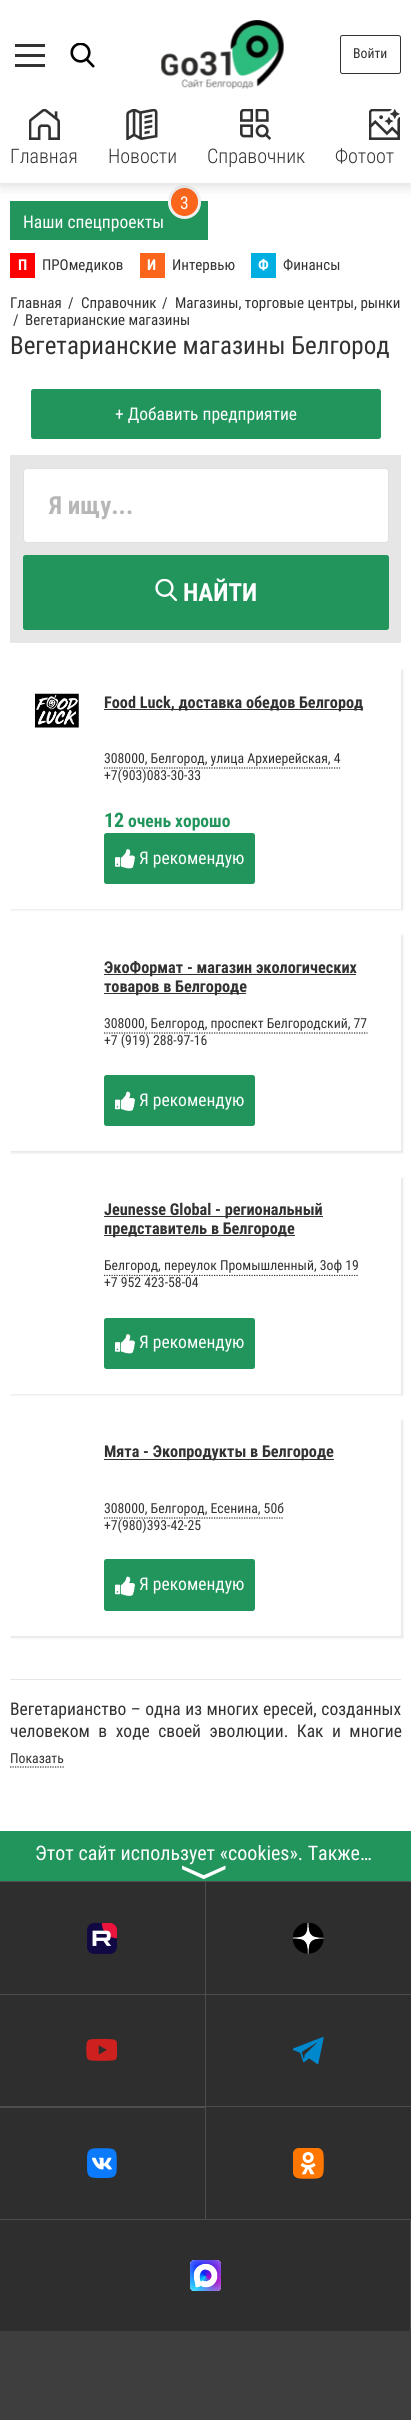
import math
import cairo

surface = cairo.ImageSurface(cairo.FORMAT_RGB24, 411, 2420)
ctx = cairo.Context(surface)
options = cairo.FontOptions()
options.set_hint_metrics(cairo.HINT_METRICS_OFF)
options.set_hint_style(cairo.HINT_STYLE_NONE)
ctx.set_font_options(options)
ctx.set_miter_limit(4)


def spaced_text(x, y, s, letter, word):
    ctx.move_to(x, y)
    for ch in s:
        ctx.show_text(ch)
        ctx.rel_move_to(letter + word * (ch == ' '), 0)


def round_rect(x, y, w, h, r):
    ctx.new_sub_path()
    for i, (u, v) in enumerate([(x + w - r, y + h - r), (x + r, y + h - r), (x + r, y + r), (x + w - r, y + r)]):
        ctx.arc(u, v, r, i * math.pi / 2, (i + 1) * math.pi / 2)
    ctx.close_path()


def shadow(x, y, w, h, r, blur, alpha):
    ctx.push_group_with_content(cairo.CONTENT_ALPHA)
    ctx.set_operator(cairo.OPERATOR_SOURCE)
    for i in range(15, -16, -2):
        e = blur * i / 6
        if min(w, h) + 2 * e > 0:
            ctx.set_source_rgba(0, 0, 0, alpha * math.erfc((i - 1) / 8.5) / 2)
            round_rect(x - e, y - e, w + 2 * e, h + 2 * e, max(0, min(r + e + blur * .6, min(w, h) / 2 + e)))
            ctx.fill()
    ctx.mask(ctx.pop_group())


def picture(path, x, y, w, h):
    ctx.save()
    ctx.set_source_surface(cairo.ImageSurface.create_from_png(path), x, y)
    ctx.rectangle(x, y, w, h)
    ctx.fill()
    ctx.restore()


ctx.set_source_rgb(1, 1, 1)
ctx.paint()
ctx.set_source_rgb(0.133, 0.584, 0.365)
ctx.rectangle(10, 201, 198, 39)
ctx.fill()
ctx.set_source_rgb(0.984, 0.4, 0.11)
round_rect(169.5, 186.5, 30, 31, 15)
ctx.fill_preserve()
ctx.set_source_rgb(0.941, 0.941, 0.941)
ctx.set_line_width(3)
ctx.stroke()
ctx.set_source_rgb(0.306, 0.306, 0.306)
shadow(0, 4, 411, 182, 0, 6, 0.2)
ctx.set_source_rgb(1, 1, 1)
ctx.rectangle(0, 0, 411, 183)
ctx.fill()
ctx.set_source_rgb(0.196, 0.196, 0.196)
ctx.rectangle(15, 54, 30, 3)
ctx.fill()
ctx.rectangle(15, 44, 30, 3)
ctx.fill()
ctx.rectangle(15, 64, 30, 3)
ctx.fill()
picture("img1.png", 70, 43, 25, 25)
picture("img2.png", 160, 20, 124, 69)
round_rect(340.5, 35.5, 60, 38, 2)
ctx.set_line_width(1)
ctx.stroke()
ctx.select_font_face("Roboto Condensed")
ctx.set_font_size(13.75)
ctx.move_to(353, 58)
ctx.show_text("Войти")
picture("img3.png", 29, 109, 31, 31)
ctx.select_font_face("Roboto Condensed Light")
ctx.set_font_size(20)
ctx.move_to(10, 163)
ctx.show_text("Главная")
picture("img4.png", 126, 109, 32, 31)
ctx.move_to(108, 163)
ctx.show_text("Новости")
picture("img5.png", 240, 109, 31, 31)
ctx.move_to(207, 163)
ctx.show_text("Справочник")
picture("img6.png", 369, 109, 31, 31)
ctx.move_to(335, 163)
ctx.show_text("Фотоот")
ctx.select_font_face("Roboto Condensed")
ctx.set_font_size(17.5)
ctx.set_source_rgb(1, 1, 1)
ctx.move_to(180, 209)
ctx.show_text("3")
ctx.move_to(23, 228)
ctx.show_text("Наши спецпроекты")
ctx.set_source_rgb(1, 0, 0)
ctx.rectangle(10, 253, 25, 25)
ctx.fill()
ctx.select_font_face("Roboto Condensed", cairo.FONT_SLANT_NORMAL, cairo.FONT_WEIGHT_BOLD)
ctx.set_font_size(15)
ctx.set_source_rgb(1, 1, 1)
ctx.move_to(18, 270)
ctx.show_text("П")
ctx.select_font_face("Roboto Condensed")
ctx.set_source_rgb(0.196, 0.196, 0.196)
ctx.move_to(42, 270)
ctx.show_text("ПРОмедиков")
ctx.set_source_rgb(0.984, 0.4, 0.11)
ctx.rectangle(140, 253, 25, 25)
ctx.fill()
ctx.select_font_face("Roboto Condensed", cairo.FONT_SLANT_NORMAL, cairo.FONT_WEIGHT_BOLD)
ctx.set_source_rgb(1, 1, 1)
ctx.move_to(147, 270)
ctx.show_text("И")
ctx.select_font_face("Roboto Condensed")
ctx.set_source_rgb(0.196, 0.196, 0.196)
ctx.move_to(172, 270)
ctx.show_text("Интервью")
ctx.set_source_rgb(0, 0.686, 0.882)
ctx.rectangle(251, 253, 25, 25)
ctx.fill()
ctx.select_font_face("Roboto Condensed", cairo.FONT_SLANT_NORMAL, cairo.FONT_WEIGHT_BOLD)
ctx.set_source_rgb(1, 1, 1)
ctx.move_to(258, 270)
ctx.show_text("Ф")
ctx.select_font_face("Roboto Condensed")
ctx.set_source_rgb(0.196, 0.196, 0.196)
ctx.move_to(283, 270)
ctx.show_text("Финансы")
ctx.move_to(10, 308)
ctx.show_text("Главная")
ctx.move_to(68, 308)
ctx.show_text("/")
ctx.move_to(81, 308)
ctx.show_text("Справочник")
ctx.move_to(162, 308)
ctx.show_text("/")
ctx.move_to(175, 308)
ctx.show_text("Магазины, торговые центры, рынки")
ctx.move_to(13, 325)
ctx.show_text("/")
ctx.move_to(25, 325)
ctx.show_text("Вегетарианские магазины")
ctx.set_font_size(25)
ctx.move_to(10, 354)
ctx.show_text("Вегетарианские магазины Белгород")
ctx.set_source_rgb(0.133, 0.584, 0.365)
round_rect(31, 389, 350, 50, 2.5)
ctx.fill()
ctx.set_font_size(17.5)
ctx.set_source_rgb(1, 1, 1)
ctx.move_to(115, 420)
ctx.show_text("+ Добавить предприятие")
ctx.set_source_rgb(0.902, 0.902, 0.902)
ctx.rectangle(10, 455, 391, 188)
ctx.fill()
ctx.set_source_rgb(1, 1, 1)
round_rect(23, 468, 366, 75, 4)
ctx.fill()
round_rect(23.5, 468.5, 365, 74, 3.5)
ctx.set_source_rgba(0.196, 0.196, 0.196, 0.15)
ctx.stroke()
ctx.select_font_face("Roboto Condensed", cairo.FONT_SLANT_NORMAL, cairo.FONT_WEIGHT_BOLD)
ctx.set_font_size(25)
ctx.set_source_rgb(0.718, 0.718, 0.718)
ctx.move_to(49, 514)
ctx.show_text("Я ищу...")
ctx.set_source_rgb(0.133, 0.584, 0.365)
round_rect(23, 555, 366, 75, 2.5)
ctx.fill()
picture("img7.png", 155, 579, 23, 22)
ctx.set_source_rgb(1, 1, 1)
ctx.move_to(183, 601)
ctx.show_text("НАЙТИ")
ctx.set_source_rgb(0.353, 0.353, 0.353)
shadow(11, 670, 392, 240, 0, 1, 0.15)
ctx.set_source_rgb(1, 1, 1)
ctx.rectangle(10, 669, 391, 240)
ctx.fill()
picture("img8.png", 35, 693, 44, 35)
ctx.set_source_rgb(0.196, 0.196, 0.196)
ctx.rectangle(104, 709, 259, 1)
ctx.fill()
ctx.set_font_size(16.25)
ctx.move_to(104, 708)
ctx.show_text("Food Luck, доставка обедов Белгород")
ctx.new_path()
ctx.move_to(104, 768)
ctx.line_to(340, 768)
ctx.set_line_width(1.2)
ctx.set_dash([1.25, 1.25])
ctx.stroke()
ctx.select_font_face("Roboto Condensed")
ctx.set_font_size(13.75)
ctx.move_to(104, 763)
ctx.show_text("308000, Белгород, улица Архиерейская, 4")
ctx.move_to(104, 780)
ctx.show_text("+7(903)083-30-33")
ctx.select_font_face("Roboto Condensed", cairo.FONT_SLANT_NORMAL, cairo.FONT_WEIGHT_BOLD)
ctx.set_font_size(20)
ctx.set_source_rgb(0.133, 0.584, 0.365)
ctx.move_to(104, 827)
ctx.show_text("12")
ctx.set_font_size(17.5)
ctx.move_to(128, 827)
ctx.show_text("очень хорошо")
round_rect(104, 833, 151, 51, 2.5)
ctx.fill()
picture("img9.png", 115, 849, 20, 20)
ctx.select_font_face("Roboto Condensed")
ctx.set_source_rgb(1, 1, 1)
ctx.move_to(139, 864)
ctx.show_text("Я рекомендую")
ctx.save()
ctx.set_fill_rule(cairo.FILL_RULE_EVEN_ODD)
ctx.new_path()
ctx.move_to(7, 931)
ctx.line_to(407, 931)
ctx.line_to(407, 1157)
ctx.line_to(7, 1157)
ctx.close_path()
ctx.move_to(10, 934)
ctx.line_to(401, 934)
ctx.line_to(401, 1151)
ctx.line_to(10, 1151)
ctx.close_path()
ctx.clip()
ctx.set_source_rgb(0.353, 0.353, 0.353)
shadow(11, 935, 392, 218, 0, 1, 0.15)
ctx.restore()
ctx.set_source_rgb(0.196, 0.196, 0.196)
ctx.rectangle(104, 974, 252, 1)
ctx.fill()
ctx.select_font_face("Roboto Condensed", cairo.FONT_SLANT_NORMAL, cairo.FONT_WEIGHT_BOLD)
ctx.set_font_size(16.25)
ctx.move_to(104, 973)
ctx.show_text("ЭкоФормат - магазин экологических")
ctx.rectangle(104, 993, 142, 1)
ctx.fill()
ctx.move_to(104, 992)
ctx.show_text("товаров в Белгороде")
ctx.new_path()
ctx.move_to(104, 1033)
ctx.line_to(367.5, 1033)
ctx.stroke()
ctx.select_font_face("Roboto Condensed")
ctx.set_font_size(13.75)
ctx.move_to(104, 1028)
ctx.show_text("308000, Белгород, проспект Белгородский, 77")
ctx.move_to(104, 1045)
ctx.show_text("+7 (919) 288-97-16")
ctx.set_source_rgb(0.133, 0.584, 0.365)
round_rect(104, 1075, 151, 51, 2.5)
ctx.fill()
picture("img10.png", 115, 1091, 20, 20)
ctx.set_font_size(17.5)
ctx.set_source_rgb(1, 1, 1)
ctx.move_to(139, 1106)
ctx.show_text("Я рекомендую")
ctx.set_source_rgb(0.353, 0.353, 0.353)
shadow(11, 1178, 392, 217, 0, 1, 0.15)
ctx.set_source_rgb(1, 1, 1)
ctx.rectangle(10, 1177, 391, 217)
ctx.fill()
ctx.set_source_rgb(0.196, 0.196, 0.196)
ctx.rectangle(104, 1216, 219, 1)
ctx.fill()
ctx.select_font_face("Roboto Condensed", cairo.FONT_SLANT_NORMAL, cairo.FONT_WEIGHT_BOLD)
ctx.set_font_size(16.25)
ctx.move_to(104, 1215)
ctx.show_text("Jeunesse Global - региональный")
ctx.rectangle(104, 1235, 191, 1)
ctx.fill()
ctx.move_to(104, 1234)
ctx.show_text("представитель в Белгороде")
ctx.save()
ctx.rectangle(104, 1259, 272, 17)
ctx.clip()
ctx.new_path()
ctx.move_to(104, 1275.5)
ctx.line_to(359, 1275.5)
ctx.stroke()
ctx.restore()
ctx.select_font_face("Roboto Condensed")
ctx.set_font_size(13.75)
ctx.move_to(104, 1270)
ctx.show_text("Белгород, переулок Промышленный, 3оф 19")
ctx.move_to(104, 1287)
ctx.show_text("+7 952 423-58-04")
ctx.set_source_rgb(0.133, 0.584, 0.365)
round_rect(104, 1318, 151, 51, 2.5)
ctx.fill()
picture("img9.png", 115, 1334, 20, 20)
ctx.set_font_size(17.5)
ctx.set_source_rgb(1, 1, 1)
ctx.move_to(139, 1348)
ctx.show_text("Я рекомендую")
ctx.save()
ctx.set_fill_rule(cairo.FILL_RULE_EVEN_ODD)
ctx.new_path()
ctx.move_to(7, 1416)
ctx.line_to(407, 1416)
ctx.line_to(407, 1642)
ctx.line_to(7, 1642)
ctx.close_path()
ctx.move_to(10, 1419)
ctx.line_to(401, 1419)
ctx.line_to(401, 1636)
ctx.line_to(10, 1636)
ctx.close_path()
ctx.clip()
ctx.set_source_rgb(0.353, 0.353, 0.353)
shadow(11, 1420, 392, 218, 0, 1, 0.15)
ctx.restore()
ctx.set_source_rgb(0.196, 0.196, 0.196)
ctx.rectangle(104, 1459, 230, 1)
ctx.fill()
ctx.select_font_face("Roboto Condensed", cairo.FONT_SLANT_NORMAL, cairo.FONT_WEIGHT_BOLD)
ctx.set_font_size(16.25)
ctx.move_to(104, 1457)
ctx.show_text("Мята - Экопродукты в Белгороде")
ctx.new_path()
ctx.move_to(104, 1518)
ctx.line_to(284, 1518)
ctx.stroke()
ctx.select_font_face("Roboto Condensed")
ctx.set_font_size(13.75)
ctx.move_to(104, 1513)
ctx.show_text("308000, Белгород, Есенина, 50б")
ctx.move_to(104, 1530)
ctx.show_text("+7(980)393-42-25")
ctx.set_source_rgb(0.133, 0.584, 0.365)
round_rect(104, 1559, 151, 52, 2.5)
ctx.fill()
picture("img10.png", 115, 1576, 20, 20)
ctx.set_font_size(17.5)
ctx.set_source_rgb(1, 1, 1)
ctx.move_to(139, 1590)
ctx.show_text("Я рекомендую")
ctx.set_source_rgb(0.902, 0.902, 0.902)
ctx.rectangle(10, 1679, 391, 1)
ctx.fill()
ctx.set_source_rgb(0.196, 0.196, 0.196)
spaced_text(10, 1715, "Вегетарианство – одна из многих ересей, созданных", 0, 0.5)
spaced_text(10, 1737, "человеком в ходе своей эволюции. Как и многие", 0, 4.5)
ctx.set_font_size(13.75)
ctx.move_to(10, 1763)
ctx.show_text("Показать")
ctx.new_path()
ctx.move_to(10, 1767)
ctx.line_to(64, 1767)
ctx.stroke()
ctx.set_source_rgb(0.133, 0.584, 0.365)
ctx.rectangle(0, 1831, 411, 50)
ctx.fill()
ctx.set_font_size(20)
ctx.set_source_rgb(1, 1, 1)
ctx.move_to(35, 1860)
ctx.show_text("Этот сайт использует «cookies». Также…")
ctx.select_font_face("FreeSans")
ctx.set_font_size(50)
ctx.save()
ctx.translate(189, 1864)
ctx.rotate(90 * math.pi / 180)
ctx.move_to(0, 0)
ctx.show_text("〉")
ctx.restore()
ctx.set_source_rgb(0.247, 0.243, 0.243)
ctx.rectangle(0, 2331, 411, 89)
ctx.fill()
ctx.set_source_rgb(0.184, 0.18, 0.18)
ctx.rectangle(0, 1881, 411, 450)
ctx.fill()
ctx.set_source_rgb(0.306, 0.302, 0.302)
ctx.new_path()
ctx.move_to(0, 1881)
ctx.line_to(206, 1881)
ctx.line_to(205, 1882)
ctx.line_to(0, 1882)
ctx.close_path()
ctx.fill()
ctx.set_source_rgba(1, 1, 1, 0.15)
ctx.new_path()
ctx.move_to(206, 1881)
ctx.line_to(206, 1994)
ctx.line_to(205, 1994)
ctx.line_to(205, 1882)
ctx.close_path()
ctx.fill()
picture("img11.png", 87, 1923, 30, 31)
ctx.set_source_rgb(0.306, 0.302, 0.302)
ctx.rectangle(206, 1881, 205, 1)
ctx.fill()
picture("img12.png", 293, 1923, 31, 31)
ctx.new_path()
ctx.move_to(0, 1994)
ctx.line_to(206, 1994)
ctx.line_to(205, 1995)
ctx.line_to(0, 1995)
ctx.close_path()
ctx.fill()
ctx.set_source_rgba(1, 1, 1, 0.15)
ctx.new_path()
ctx.move_to(206, 1994)
ctx.line_to(206, 2106)
ctx.line_to(205, 2106)
ctx.line_to(205, 1995)
ctx.close_path()
ctx.fill()
picture("img13.png", 86, 2038, 31, 23)
ctx.set_source_rgb(0.306, 0.302, 0.302)
ctx.rectangle(206, 1994, 205, 1)
ctx.fill()
picture("img14.png", 293, 2037, 31, 28)
ctx.new_path()
ctx.move_to(0, 2106)
ctx.line_to(206, 2106)
ctx.line_to(205, 2108)
ctx.line_to(0, 2108)
ctx.close_path()
ctx.fill()
ctx.set_source_rgba(1, 1, 1, 0.15)
ctx.new_path()
ctx.move_to(206, 2106)
ctx.line_to(206, 2219)
ctx.line_to(205, 2219)
ctx.line_to(205, 2108)
ctx.close_path()
ctx.fill()
picture("img15.png", 87, 2148, 30, 30)
ctx.set_source_rgb(0.306, 0.302, 0.302)
ctx.rectangle(206, 2106, 205, 1)
ctx.fill()
picture("img16.png", 293, 2148, 31, 31)
ctx.new_path()
ctx.move_to(0, 2219)
ctx.line_to(411, 2219)
ctx.line_to(410, 2220)
ctx.line_to(0, 2220)
ctx.close_path()
ctx.fill()
ctx.set_source_rgba(1, 1, 1, 0.15)
ctx.new_path()
ctx.move_to(411, 2219)
ctx.line_to(411, 2331)
ctx.line_to(410, 2331)
ctx.line_to(410, 2220)
ctx.close_path()
ctx.fill()
picture("img17.png", 190, 2260, 31, 31)
surface.write_to_png("page.png")
